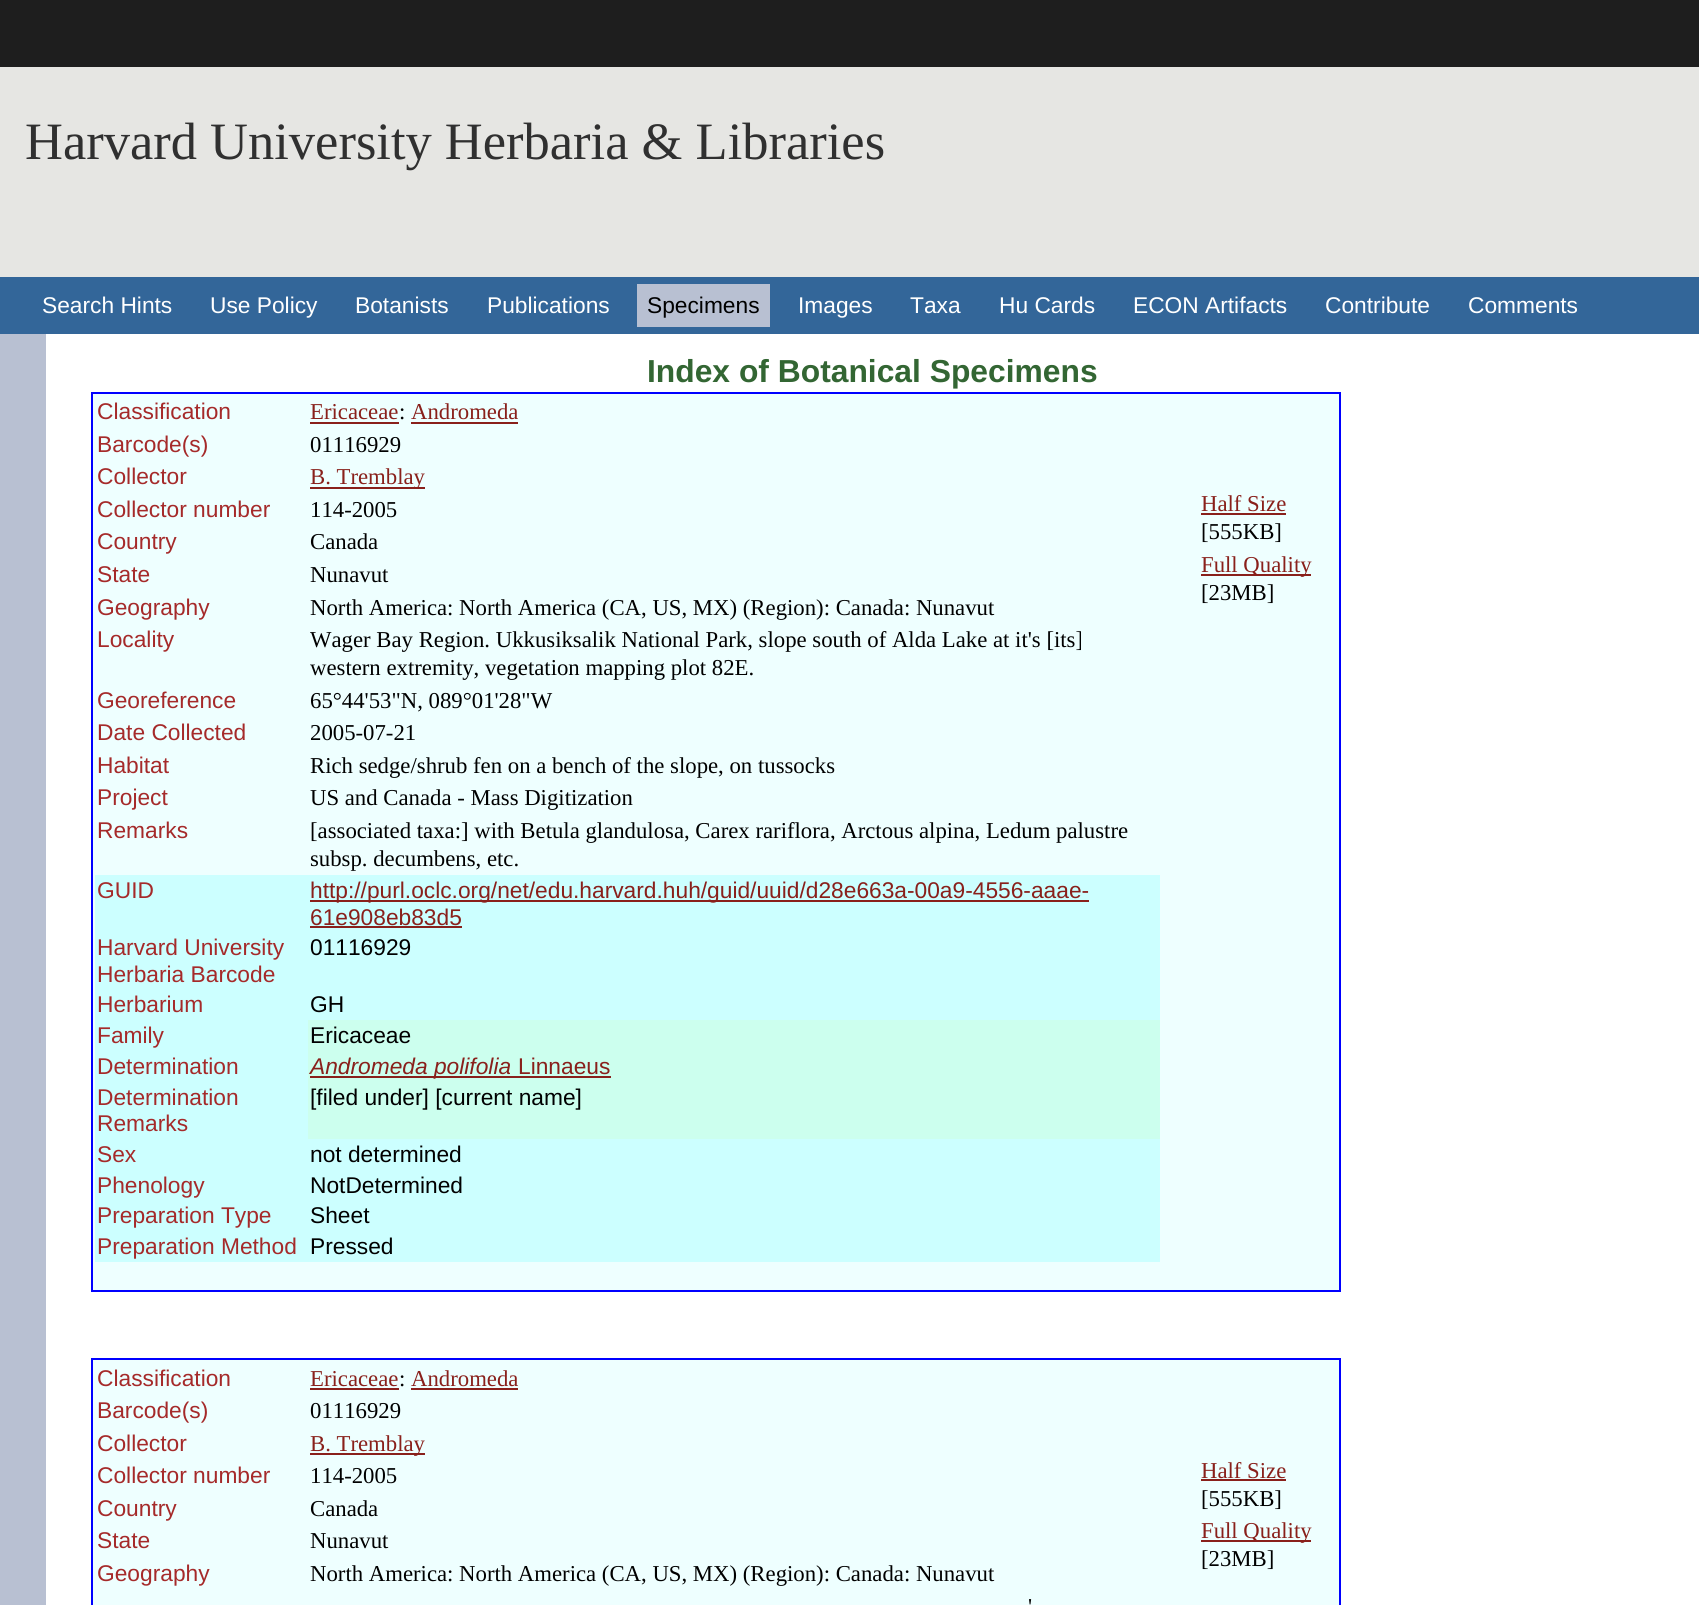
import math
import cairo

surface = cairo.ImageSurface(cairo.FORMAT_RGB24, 1699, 1605)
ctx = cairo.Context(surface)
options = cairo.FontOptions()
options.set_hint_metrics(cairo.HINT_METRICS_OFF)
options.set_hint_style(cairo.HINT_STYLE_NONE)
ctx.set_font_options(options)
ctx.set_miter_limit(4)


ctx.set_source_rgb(0.118, 0.118, 0.118)
ctx.paint()
ctx.set_source_rgb(0.902, 0.902, 0.89)
ctx.rectangle(0, 67, 1699, 210)
ctx.fill()
ctx.select_font_face("Liberation Serif")
ctx.set_font_size(52.5)
ctx.set_source_rgb(0.188, 0.188, 0.188)
ctx.move_to(25, 159)
ctx.show_text("Harvard University Herbaria & Libraries")
ctx.set_source_rgb(0.2, 0.4, 0.6)
ctx.rectangle(0, 277, 1699, 57)
ctx.fill()
ctx.select_font_face("Liberation Sans")
ctx.set_font_size(22.75)
ctx.set_source_rgb(1, 1, 1)
ctx.move_to(42, 313)
ctx.show_text("Search Hints")
ctx.move_to(210, 313)
ctx.show_text("Use Policy")
ctx.move_to(355, 313)
ctx.show_text("Botanists")
ctx.move_to(487, 313)
ctx.show_text("Publications")
ctx.set_source_rgb(0.722, 0.753, 0.824)
ctx.rectangle(637, 284, 133, 43)
ctx.fill()
ctx.set_source_rgb(0, 0, 0)
ctx.move_to(647, 313)
ctx.show_text("Specimens")
ctx.set_source_rgb(1, 1, 1)
ctx.move_to(798, 313)
ctx.show_text("Images")
ctx.move_to(910, 313)
ctx.show_text("Taxa")
ctx.move_to(999, 313)
ctx.show_text("Hu Cards")
ctx.move_to(1133, 313)
ctx.show_text("ECON Artifacts")
ctx.move_to(1325, 313)
ctx.show_text("Contribute")
ctx.move_to(1468, 313)
ctx.show_text("Comments")
ctx.set_source_rgb(0.722, 0.753, 0.824)
ctx.rectangle(0, 334, 46, 1271)
ctx.fill()
ctx.set_source_rgb(1, 1, 1)
ctx.rectangle(46, 334, 1653, 1271)
ctx.fill()
ctx.select_font_face("Liberation Sans", cairo.FONT_SLANT_NORMAL, cairo.FONT_WEIGHT_BOLD)
ctx.set_font_size(31.8)
ctx.set_source_rgb(0.2, 0.4, 0.2)
ctx.move_to(647, 382)
ctx.show_text("Index of Botanical Specimens")
ctx.set_source_rgb(0.933, 1, 1)
ctx.rectangle(93, 394, 1246, 896)
ctx.fill()
ctx.set_source_rgb(0, 0, 1)
ctx.rectangle(91, 392, 1250, 2)
ctx.fill()
ctx.rectangle(1339, 392, 2, 900)
ctx.fill()
ctx.rectangle(91, 1290, 1250, 2)
ctx.fill()
ctx.rectangle(91, 392, 2, 900)
ctx.fill()
ctx.select_font_face("Liberation Sans")
ctx.set_font_size(22.75)
ctx.set_source_rgb(0.647, 0.165, 0.165)
ctx.move_to(97, 419)
ctx.show_text("Classification")
ctx.select_font_face("Liberation Serif")
ctx.set_source_rgb(0.537, 0.125, 0.106)
ctx.move_to(310, 419)
ctx.show_text("Ericaceae")
ctx.rectangle(310, 422, 89, 2)
ctx.fill()
ctx.set_source_rgb(0, 0, 0)
ctx.move_to(399, 419)
ctx.show_text(":")
ctx.set_source_rgb(0.537, 0.125, 0.106)
ctx.move_to(411, 419)
ctx.show_text("Andromeda")
ctx.rectangle(411, 422, 107, 2)
ctx.fill()
ctx.select_font_face("Liberation Sans")
ctx.set_source_rgb(0.647, 0.165, 0.165)
ctx.move_to(97, 452)
ctx.show_text("Barcode(s)")
ctx.select_font_face("Liberation Serif")
ctx.set_source_rgb(0, 0, 0)
ctx.move_to(310, 452)
ctx.show_text("01116929")
ctx.select_font_face("Liberation Sans")
ctx.set_source_rgb(0.647, 0.165, 0.165)
ctx.move_to(97, 484)
ctx.show_text("Collector")
ctx.set_source_rgb(0.537, 0.125, 0.106)
ctx.rectangle(310, 487, 115, 2)
ctx.fill()
ctx.select_font_face("Liberation Serif")
ctx.move_to(310, 484)
ctx.show_text("B. Tremblay")
ctx.select_font_face("Liberation Sans")
ctx.set_source_rgb(0.647, 0.165, 0.165)
ctx.move_to(97, 517)
ctx.show_text("Collector number")
ctx.select_font_face("Liberation Serif")
ctx.set_source_rgb(0, 0, 0)
ctx.move_to(310, 517)
ctx.show_text("114-2005")
ctx.select_font_face("Liberation Sans")
ctx.set_source_rgb(0.647, 0.165, 0.165)
ctx.move_to(97, 549)
ctx.show_text("Country")
ctx.select_font_face("Liberation Serif")
ctx.set_source_rgb(0, 0, 0)
ctx.move_to(310, 549)
ctx.show_text("Canada")
ctx.select_font_face("Liberation Sans")
ctx.set_source_rgb(0.647, 0.165, 0.165)
ctx.move_to(97, 582)
ctx.show_text("State")
ctx.select_font_face("Liberation Serif")
ctx.set_source_rgb(0, 0, 0)
ctx.move_to(310, 582)
ctx.show_text("Nunavut")
ctx.select_font_face("Liberation Sans")
ctx.set_source_rgb(0.647, 0.165, 0.165)
ctx.move_to(97, 615)
ctx.show_text("Geography")
ctx.select_font_face("Liberation Serif")
ctx.set_source_rgb(0, 0, 0)
ctx.move_to(310, 615)
ctx.show_text("North America: North America (CA, US, MX) (Region): Canada: Nunavut")
ctx.select_font_face("Liberation Sans")
ctx.set_source_rgb(0.647, 0.165, 0.165)
ctx.move_to(97, 647)
ctx.show_text("Locality")
ctx.select_font_face("Liberation Serif")
ctx.set_source_rgb(0, 0, 0)
ctx.move_to(310, 647)
ctx.show_text("Wager Bay Region. Ukkusiksalik National Park, slope south of Alda Lake at it's [its]")
ctx.move_to(310, 675)
ctx.show_text("western extremity, vegetation mapping plot 82E.")
ctx.select_font_face("Liberation Sans")
ctx.set_source_rgb(0.647, 0.165, 0.165)
ctx.move_to(97, 708)
ctx.show_text("Georeference")
ctx.select_font_face("Liberation Serif")
ctx.set_source_rgb(0, 0, 0)
ctx.move_to(310, 708)
ctx.show_text("65°44'53\"N, 089°01'28\"W")
ctx.select_font_face("Liberation Sans")
ctx.set_source_rgb(0.647, 0.165, 0.165)
ctx.move_to(97, 740)
ctx.show_text("Date Collected")
ctx.select_font_face("Liberation Serif")
ctx.set_source_rgb(0, 0, 0)
ctx.move_to(310, 740)
ctx.show_text("2005-07-21")
ctx.select_font_face("Liberation Sans")
ctx.set_source_rgb(0.647, 0.165, 0.165)
ctx.move_to(97, 773)
ctx.show_text("Habitat")
ctx.select_font_face("Liberation Serif")
ctx.set_source_rgb(0, 0, 0)
ctx.move_to(310, 773)
ctx.show_text("Rich sedge/shrub fen on a bench of the slope, on tussocks")
ctx.select_font_face("Liberation Sans")
ctx.set_source_rgb(0.647, 0.165, 0.165)
ctx.move_to(97, 805)
ctx.show_text("Project")
ctx.select_font_face("Liberation Serif")
ctx.set_source_rgb(0, 0, 0)
ctx.move_to(310, 805)
ctx.show_text("US and Canada - Mass Digitization")
ctx.select_font_face("Liberation Sans")
ctx.set_source_rgb(0.647, 0.165, 0.165)
ctx.move_to(97, 838)
ctx.show_text("Remarks")
ctx.select_font_face("Liberation Serif")
ctx.set_source_rgb(0, 0, 0)
ctx.move_to(310, 838)
ctx.show_text("[associated taxa:] with Betula glandulosa, Carex rariflora, Arctous alpina, Ledum palustre")
ctx.move_to(310, 866)
ctx.show_text("subsp. decumbens, etc.")
ctx.set_source_rgb(0.8, 1, 1)
ctx.rectangle(95, 875, 1065, 145)
ctx.fill()
ctx.select_font_face("Liberation Sans")
ctx.set_source_rgb(0.647, 0.165, 0.165)
ctx.move_to(97, 898)
ctx.show_text("GUID")
ctx.set_source_rgb(0.537, 0.125, 0.106)
ctx.rectangle(310, 900, 779, 2)
ctx.fill()
ctx.move_to(310, 898)
ctx.show_text("http://purl.oclc.org/net/edu.harvard.huh/guid/uuid/d28e663a-00a9-4556-aaae-")
ctx.move_to(310, 925)
ctx.show_text("61e908eb83d5")
ctx.rectangle(310, 926, 152, 2)
ctx.fill()
ctx.set_source_rgb(0.647, 0.165, 0.165)
ctx.move_to(97, 955)
ctx.show_text("Harvard University")
ctx.move_to(97, 982)
ctx.show_text("Herbaria Barcode")
ctx.set_source_rgb(0, 0, 0)
ctx.move_to(310, 955)
ctx.show_text("01116929")
ctx.set_source_rgb(0.647, 0.165, 0.165)
ctx.move_to(97, 1012)
ctx.show_text("Herbarium")
ctx.set_source_rgb(0, 0, 0)
ctx.move_to(310, 1012)
ctx.show_text("GH")
ctx.set_source_rgb(0.8, 1, 1)
ctx.rectangle(95, 1020, 213, 119)
ctx.fill()
ctx.set_source_rgb(0.647, 0.165, 0.165)
ctx.move_to(97, 1043)
ctx.show_text("Family")
ctx.set_source_rgb(0.8, 1, 0.933)
ctx.rectangle(308, 1020, 852, 119)
ctx.fill()
ctx.set_source_rgb(0, 0, 0)
ctx.move_to(310, 1043)
ctx.show_text("Ericaceae")
ctx.set_source_rgb(0.647, 0.165, 0.165)
ctx.move_to(97, 1074)
ctx.show_text("Determination")
ctx.set_source_rgb(0.537, 0.125, 0.106)
ctx.rectangle(310, 1076, 301, 2)
ctx.fill()
ctx.select_font_face("Liberation Sans", cairo.FONT_SLANT_ITALIC)
ctx.move_to(310, 1074)
ctx.show_text("Andromeda polifolia")
ctx.select_font_face("Liberation Sans")
ctx.move_to(518, 1074)
ctx.show_text("Linnaeus")
ctx.set_source_rgb(0.647, 0.165, 0.165)
ctx.move_to(97, 1105)
ctx.show_text("Determination")
ctx.move_to(97, 1131)
ctx.show_text("Remarks")
ctx.set_source_rgb(0, 0, 0)
ctx.move_to(310, 1105)
ctx.show_text("[filed under] [current name]")
ctx.set_source_rgb(0.8, 1, 1)
ctx.rectangle(95, 1139, 1065, 123)
ctx.fill()
ctx.set_source_rgb(0.647, 0.165, 0.165)
ctx.move_to(97, 1162)
ctx.show_text("Sex")
ctx.set_source_rgb(0, 0, 0)
ctx.move_to(310, 1162)
ctx.show_text("not determined")
ctx.set_source_rgb(0.647, 0.165, 0.165)
ctx.move_to(97, 1193)
ctx.show_text("Phenology")
ctx.set_source_rgb(0, 0, 0)
ctx.move_to(310, 1193)
ctx.show_text("NotDetermined")
ctx.set_source_rgb(0.647, 0.165, 0.165)
ctx.move_to(97, 1223)
ctx.show_text("Preparation Type")
ctx.set_source_rgb(0, 0, 0)
ctx.move_to(310, 1223)
ctx.show_text("Sheet")
ctx.set_source_rgb(0.647, 0.165, 0.165)
ctx.move_to(97, 1254)
ctx.show_text("Preparation Method")
ctx.set_source_rgb(0, 0, 0)
ctx.move_to(310, 1254)
ctx.show_text("Pressed")
ctx.select_font_face("Liberation Serif")
ctx.set_source_rgb(0.537, 0.125, 0.106)
ctx.move_to(1201, 511)
ctx.show_text("Half Size")
ctx.rectangle(1201, 513, 85, 2)
ctx.fill()
ctx.set_source_rgb(0, 0, 0)
ctx.move_to(1201, 539)
ctx.show_text("[555KB]")
ctx.set_source_rgb(0.537, 0.125, 0.106)
ctx.rectangle(1201, 574, 110, 2)
ctx.fill()
ctx.move_to(1201, 572)
ctx.show_text("Full Quality")
ctx.set_source_rgb(0, 0, 0)
ctx.move_to(1201, 600)
ctx.show_text("[23MB]")
ctx.set_source_rgb(0.933, 1, 1)
ctx.rectangle(93, 1360, 1246, 245)
ctx.fill()
ctx.set_source_rgb(0, 0, 1)
ctx.rectangle(91, 1358, 1250, 2)
ctx.fill()
ctx.rectangle(1339, 1358, 2, 247)
ctx.fill()
ctx.rectangle(91, 1358, 2, 247)
ctx.fill()
ctx.select_font_face("Liberation Sans")
ctx.set_source_rgb(0.647, 0.165, 0.165)
ctx.move_to(97, 1386)
ctx.show_text("Classification")
ctx.select_font_face("Liberation Serif")
ctx.set_source_rgb(0.537, 0.125, 0.106)
ctx.move_to(310, 1386)
ctx.show_text("Ericaceae")
ctx.rectangle(310, 1388, 89, 2)
ctx.fill()
ctx.set_source_rgb(0, 0, 0)
ctx.move_to(399, 1386)
ctx.show_text(":")
ctx.set_source_rgb(0.537, 0.125, 0.106)
ctx.move_to(411, 1386)
ctx.show_text("Andromeda")
ctx.rectangle(411, 1388, 107, 2)
ctx.fill()
ctx.select_font_face("Liberation Sans")
ctx.set_source_rgb(0.647, 0.165, 0.165)
ctx.move_to(97, 1418)
ctx.show_text("Barcode(s)")
ctx.select_font_face("Liberation Serif")
ctx.set_source_rgb(0, 0, 0)
ctx.move_to(310, 1418)
ctx.show_text("01116929")
ctx.select_font_face("Liberation Sans")
ctx.set_source_rgb(0.647, 0.165, 0.165)
ctx.move_to(97, 1451)
ctx.show_text("Collector")
ctx.set_source_rgb(0.537, 0.125, 0.106)
ctx.rectangle(310, 1453, 115, 2)
ctx.fill()
ctx.select_font_face("Liberation Serif")
ctx.move_to(310, 1451)
ctx.show_text("B. Tremblay")
ctx.select_font_face("Liberation Sans")
ctx.set_source_rgb(0.647, 0.165, 0.165)
ctx.move_to(97, 1483)
ctx.show_text("Collector number")
ctx.select_font_face("Liberation Serif")
ctx.set_source_rgb(0, 0, 0)
ctx.move_to(310, 1483)
ctx.show_text("114-2005")
ctx.select_font_face("Liberation Sans")
ctx.set_source_rgb(0.647, 0.165, 0.165)
ctx.move_to(97, 1516)
ctx.show_text("Country")
ctx.select_font_face("Liberation Serif")
ctx.set_source_rgb(0, 0, 0)
ctx.move_to(310, 1516)
ctx.show_text("Canada")
ctx.select_font_face("Liberation Sans")
ctx.set_source_rgb(0.647, 0.165, 0.165)
ctx.move_to(97, 1548)
ctx.show_text("State")
ctx.select_font_face("Liberation Serif")
ctx.set_source_rgb(0, 0, 0)
ctx.move_to(310, 1548)
ctx.show_text("Nunavut")
ctx.select_font_face("Liberation Sans")
ctx.set_source_rgb(0.647, 0.165, 0.165)
ctx.move_to(97, 1581)
ctx.show_text("Geography")
ctx.select_font_face("Liberation Serif")
ctx.set_source_rgb(0, 0, 0)
ctx.move_to(310, 1581)
ctx.show_text("North America: North America (CA, US, MX) (Region): Canada: Nunavut")
ctx.move_to(1028, 1614)
ctx.show_text("'")
ctx.set_source_rgb(0.537, 0.125, 0.106)
ctx.move_to(1201, 1478)
ctx.show_text("Half Size")
ctx.rectangle(1201, 1479, 85, 2)
ctx.fill()
ctx.set_source_rgb(0, 0, 0)
ctx.move_to(1201, 1506)
ctx.show_text("[555KB]")
ctx.set_source_rgb(0.537, 0.125, 0.106)
ctx.rectangle(1201, 1540, 110, 2)
ctx.fill()
ctx.move_to(1201, 1538)
ctx.show_text("Full Quality")
ctx.set_source_rgb(0, 0, 0)
ctx.move_to(1201, 1566)
ctx.show_text("[23MB]")
surface.write_to_png("page.png")
